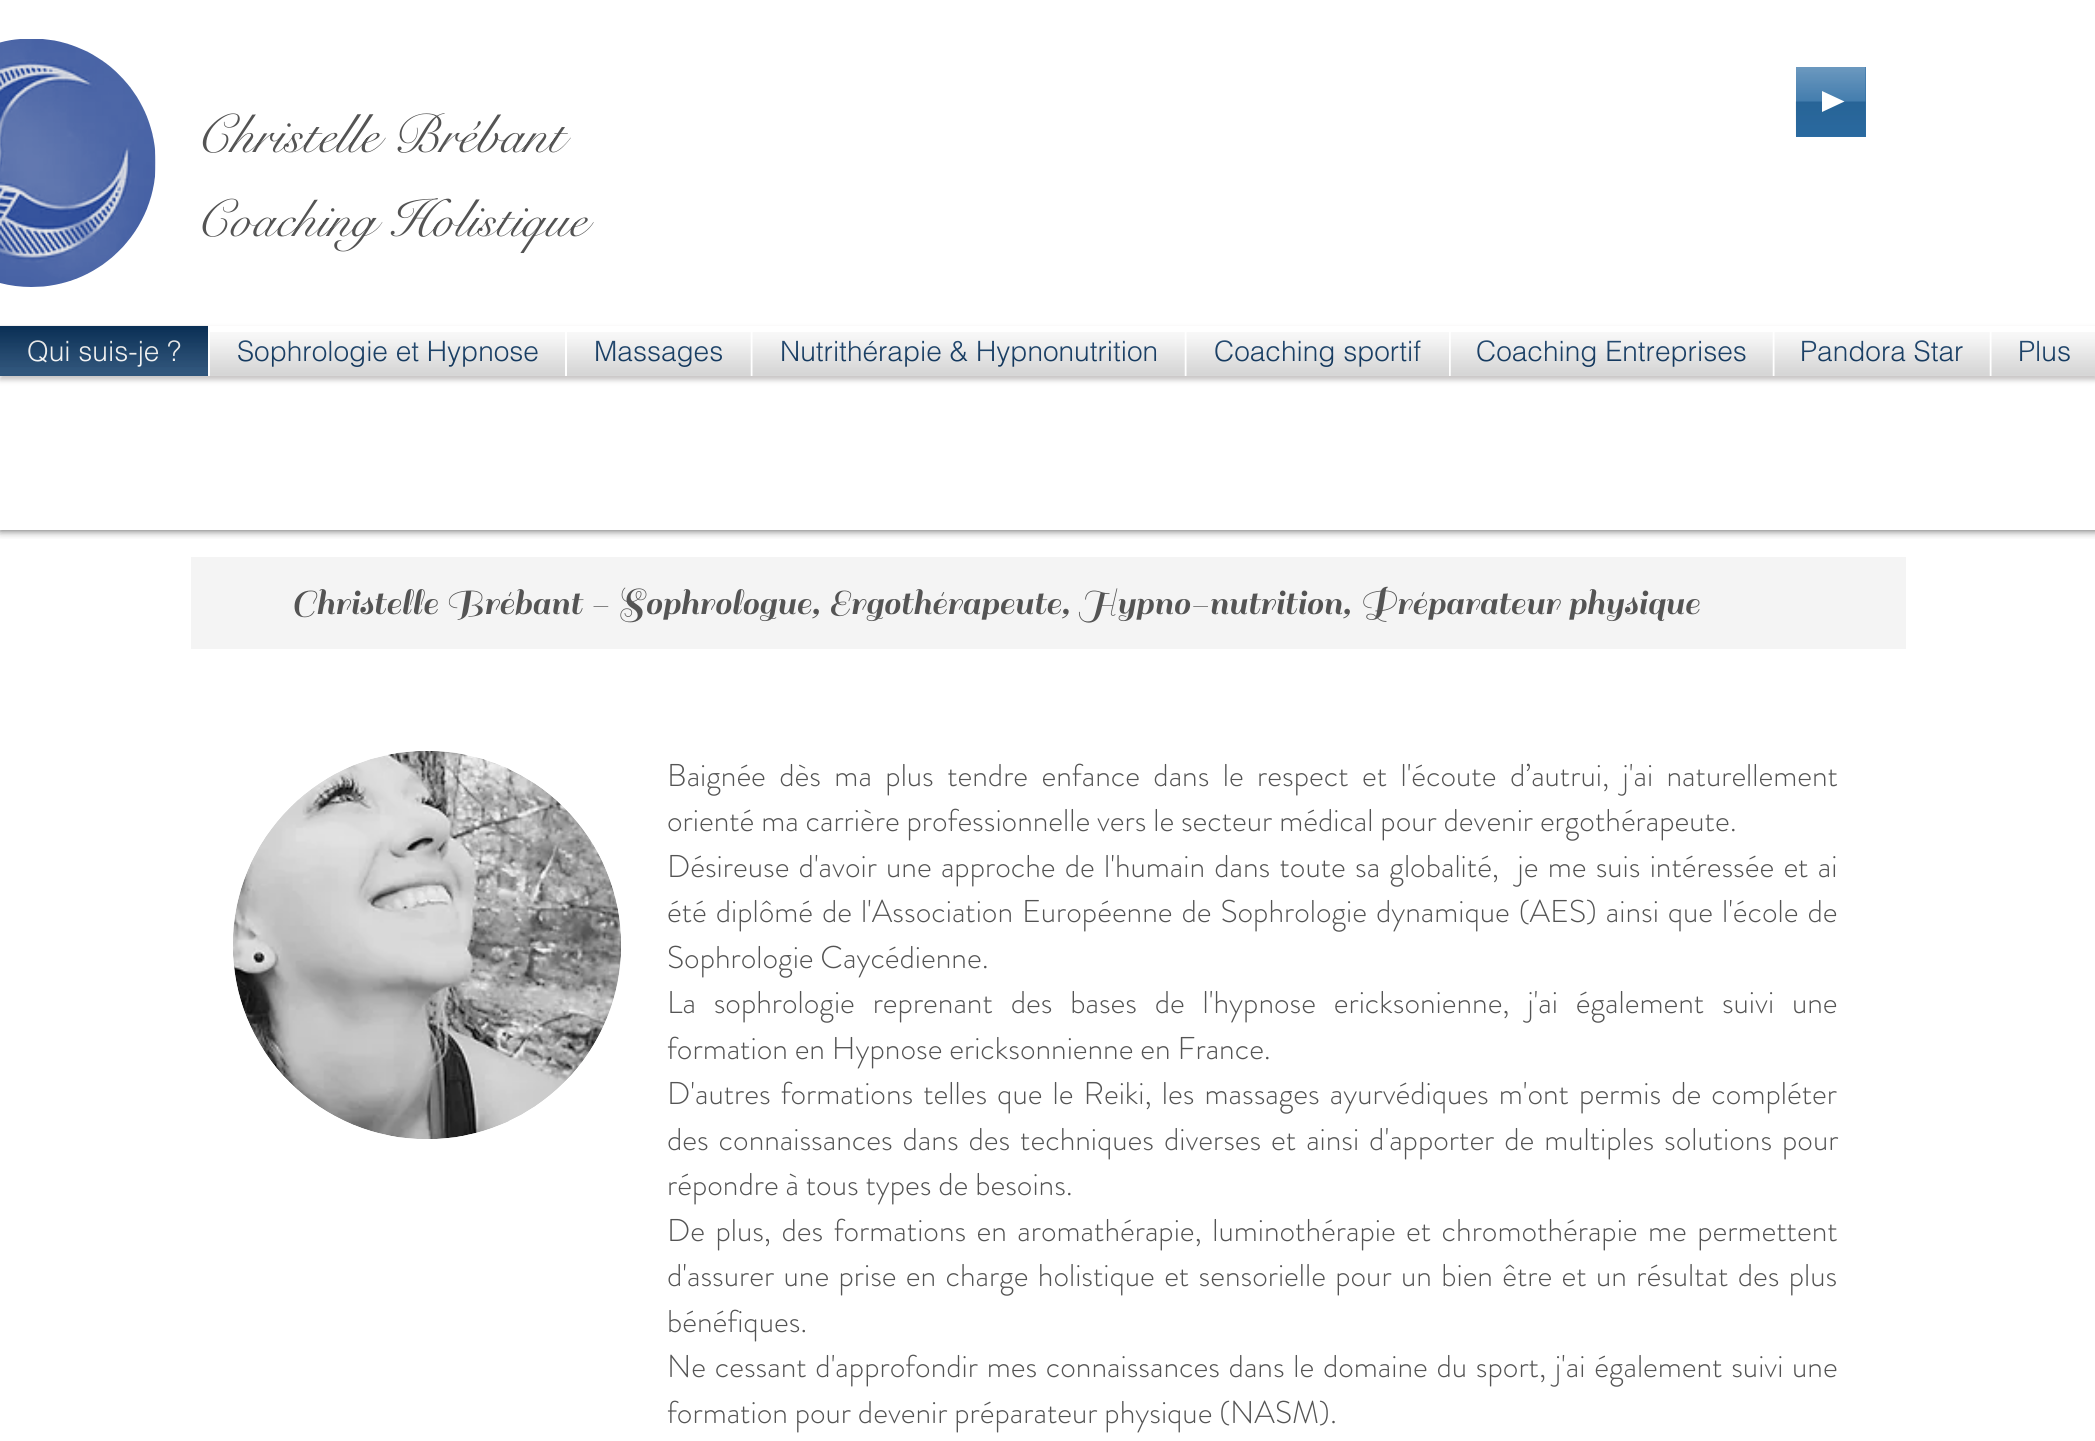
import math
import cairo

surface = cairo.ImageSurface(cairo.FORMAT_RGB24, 2095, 1441)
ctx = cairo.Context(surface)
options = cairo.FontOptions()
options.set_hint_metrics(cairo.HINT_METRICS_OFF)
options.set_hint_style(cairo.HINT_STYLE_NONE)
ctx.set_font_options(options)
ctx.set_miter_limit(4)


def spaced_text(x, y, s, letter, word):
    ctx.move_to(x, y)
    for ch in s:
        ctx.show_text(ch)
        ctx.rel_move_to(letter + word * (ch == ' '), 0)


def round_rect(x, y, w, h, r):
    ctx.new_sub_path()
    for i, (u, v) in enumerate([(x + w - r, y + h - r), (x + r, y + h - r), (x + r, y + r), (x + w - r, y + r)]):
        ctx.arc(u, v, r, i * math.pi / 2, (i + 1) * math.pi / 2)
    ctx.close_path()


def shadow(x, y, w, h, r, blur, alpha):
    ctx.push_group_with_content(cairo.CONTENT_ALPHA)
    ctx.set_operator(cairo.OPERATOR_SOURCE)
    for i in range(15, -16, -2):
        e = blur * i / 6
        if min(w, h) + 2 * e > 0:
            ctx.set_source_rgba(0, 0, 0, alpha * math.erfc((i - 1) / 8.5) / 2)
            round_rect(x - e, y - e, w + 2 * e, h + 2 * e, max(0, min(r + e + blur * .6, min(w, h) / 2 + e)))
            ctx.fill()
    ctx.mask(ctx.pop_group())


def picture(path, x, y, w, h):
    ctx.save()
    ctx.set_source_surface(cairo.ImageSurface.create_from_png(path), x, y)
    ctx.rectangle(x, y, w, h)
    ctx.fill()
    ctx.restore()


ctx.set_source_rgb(1, 1, 1)
ctx.paint()
ctx.save()
ctx.rectangle(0, 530, 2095, 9)
ctx.clip()
ctx.set_source_rgb(0, 0, 0)
shadow(0, 0, 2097, 530, 0, 4.5, 0.7)
ctx.restore()
picture("img1.png", 0, 39, 156, 248)
ctx.set_source_rgb(0.169, 0.424, 0.639)
ctx.rectangle(1796, 67, 70, 70)
ctx.fill()
picture("img2.png", 1795, 67, 71, 69)
ctx.set_source_rgb(1, 1, 1)
ctx.new_path()
ctx.move_to(1822, 112)
ctx.line_to(1822, 91)
ctx.line_to(1844.5, 101.5)
ctx.close_path()
ctx.fill()
ctx.select_font_face("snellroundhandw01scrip")
ctx.set_font_size(54.25)
ctx.set_source_rgb(0.329, 0.329, 0.329)
ctx.move_to(195, 152)
ctx.show_text("Christelle Brébant")
ctx.set_font_size(52.5)
ctx.move_to(195, 236)
ctx.show_text("Coaching Holistique")
ctx.set_source_rgb(0.635, 0.62, 0.62)
shadow(0, 329, 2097, 51, 0, 2.5, 0.6)
ctx.set_source_rgb(0, 0.18, 0.365)
ctx.rectangle(0, 326, 208, 50)
ctx.fill()
ctx.select_font_face("helvetica Light")
ctx.set_font_size(28)
ctx.set_source_rgb(1, 1, 1)
ctx.move_to(27, 361)
ctx.show_text("Qui suis-je ?")
picture("img3.png", 0, 325, 208, 42)
picture("img4.png", 0, 326, 208, 50)
ctx.rectangle(208, 326, 1887, 50)
ctx.fill()
ctx.set_source_rgb(0, 0.18, 0.365)
ctx.move_to(237, 361)
ctx.show_text("Sophrologie et Hypnose")
picture("img5.png", 238, 340, 300, 27)
picture("img6.png", 210, 332, 355, 44)
ctx.move_to(594, 361)
ctx.show_text("Massages")
picture("img7.png", 596, 340, 126, 27)
picture("img8.png", 567, 332, 184, 44)
ctx.move_to(780, 361)
ctx.show_text("Nutrithérapie & Hypnonutrition")
picture("img9.png", 781, 340, 375, 27)
picture("img10.png", 752, 332, 433, 44)
ctx.move_to(1214, 361)
ctx.show_text("Coaching sportif")
picture("img11.png", 1215, 340, 206, 27)
picture("img12.png", 1186, 332, 263, 44)
ctx.move_to(1476, 361)
ctx.show_text("Coaching Entreprises")
picture("img13.png", 1477, 340, 269, 27)
picture("img14.png", 1450, 332, 323, 44)
ctx.move_to(1800, 361)
ctx.show_text("Pandora Star")
picture("img15.png", 1802, 340, 161, 22)
picture("img16.png", 1774, 332, 216, 44)
ctx.move_to(2018, 361)
ctx.show_text("Plus")
picture("img17.png", 2019, 340, 50, 22)
picture("img18.png", 1991, 332, 104, 44)
ctx.set_source_rgb(0.957, 0.957, 0.957)
ctx.rectangle(191, 557, 1715, 92)
ctx.fill()
ctx.select_font_face("Sail")
ctx.set_font_size(38.5)
ctx.set_source_rgb(0.329, 0.329, 0.329)
ctx.move_to(291, 614)
ctx.show_text("Christelle Brébant - Sophrologue, Ergothérapeute, Hypno-nutrition, Préparateur physique")
picture("img19.png", 233, 751, 388, 388)
ctx.select_font_face("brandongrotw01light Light")
ctx.set_font_size(31.5)
spaced_text(667, 786, "Baignée dès ma plus tendre enfance dans le respect et l'écoute d’autrui, j'ai naturellement", 0, 6.6)
ctx.move_to(667, 831)
ctx.show_text("orienté ma carrière professionnelle vers le secteur médical pour devenir ergothérapeute.")
spaced_text(667, 877, "Désireuse d'avoir une approche de l'humain dans toute sa globalité,  je me suis intéressée et ai", 0, 2.4)
spaced_text(667, 922, "été diplômé de l'Association Européenne de Sophrologie dynamique (AES) ainsi que l'école de", 0, 2.1)
ctx.move_to(667, 968)
ctx.show_text("Sophrologie Caycédienne.")
spaced_text(667, 1013, "La sophrologie reprenant des bases de l'hypnose ericksonienne, j'ai également suivi une", 0, 11)
ctx.move_to(667, 1059)
ctx.show_text("formation en Hypnose ericksonnienne en France.")
spaced_text(667, 1104, "D'autres formations telles que le Reiki, les massages ayurvédiques m'ont permis de compléter", 0, 3.25)
spaced_text(667, 1150, "des connaissances dans des techniques diverses et ainsi d'apporter de multiples solutions pour", 0, 3.1)
ctx.move_to(667, 1195)
ctx.show_text("répondre à tous types de besoins.")
spaced_text(667, 1241, "De plus, des formations en aromathérapie, luminothérapie et chromothérapie me permettent", 0, 3.6)
spaced_text(667, 1286, "d'assurer une prise en charge holistique et sensorielle pour un bien être et un résultat des plus", 0, 2.5)
ctx.move_to(667, 1332)
ctx.show_text("bénéfiques.")
spaced_text(667, 1377, "Ne cessant d'approfondir mes connaissances dans le domaine du sport, j'ai également suivi une", 0, 1.9)
ctx.move_to(667, 1423)
ctx.show_text("formation pour devenir préparateur physique (NASM).")
surface.write_to_png("page.png")
